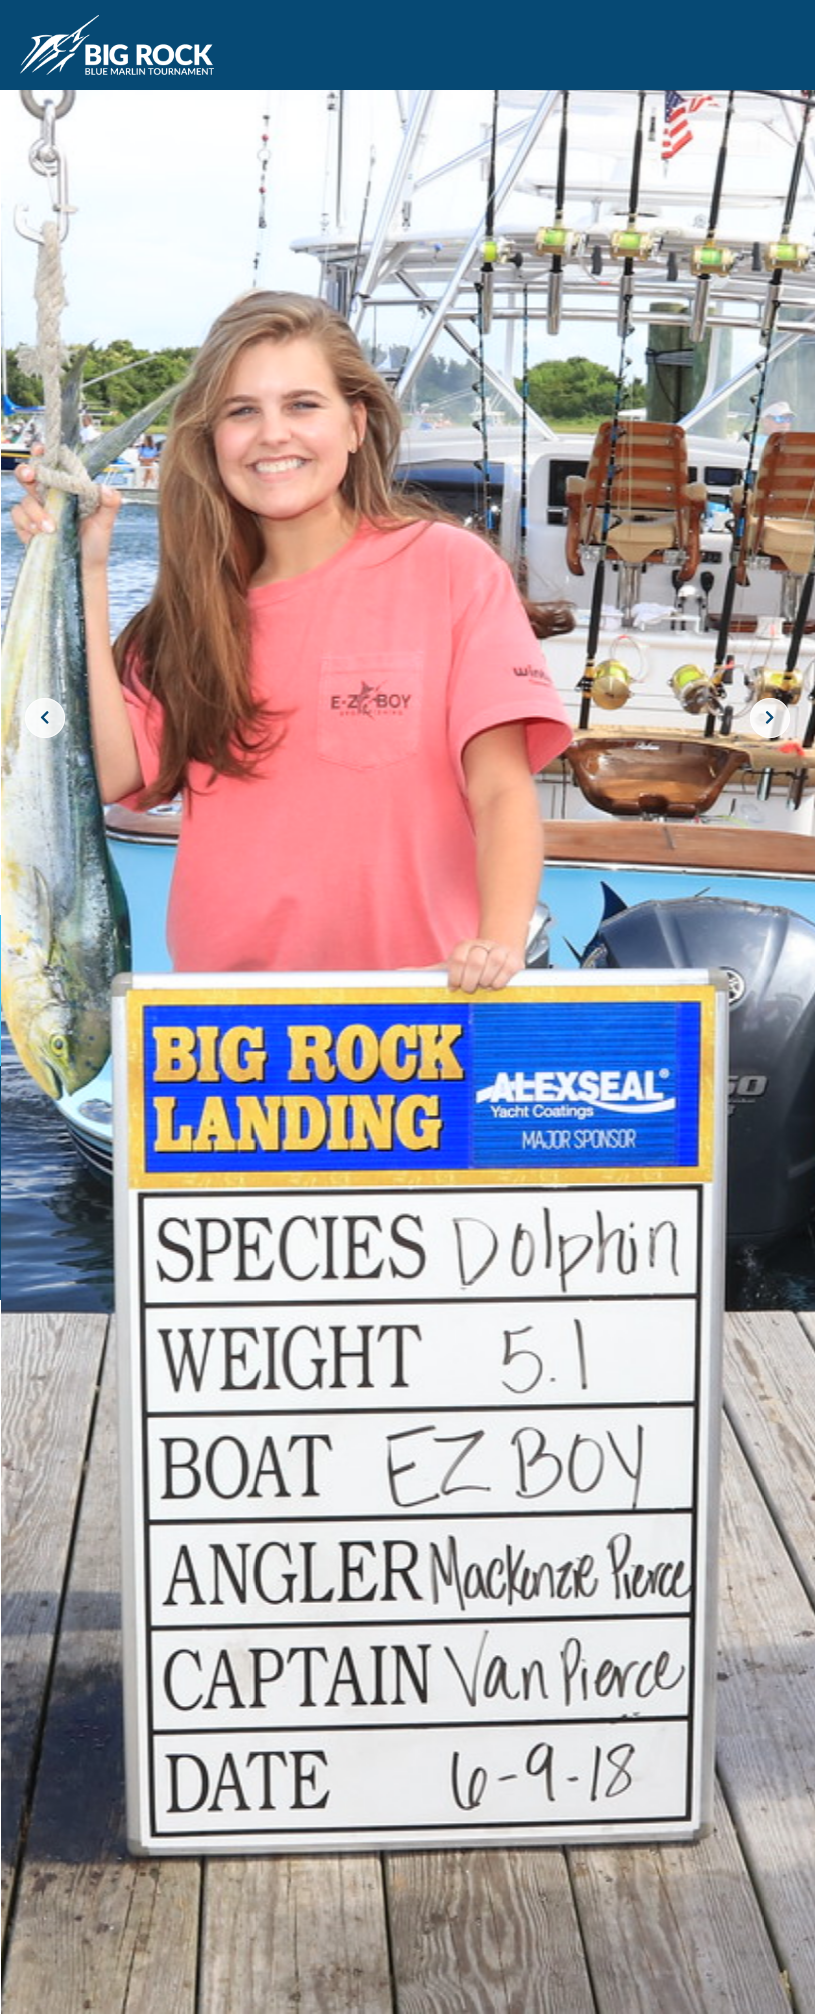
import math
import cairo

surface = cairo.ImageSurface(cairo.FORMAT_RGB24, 815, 2014)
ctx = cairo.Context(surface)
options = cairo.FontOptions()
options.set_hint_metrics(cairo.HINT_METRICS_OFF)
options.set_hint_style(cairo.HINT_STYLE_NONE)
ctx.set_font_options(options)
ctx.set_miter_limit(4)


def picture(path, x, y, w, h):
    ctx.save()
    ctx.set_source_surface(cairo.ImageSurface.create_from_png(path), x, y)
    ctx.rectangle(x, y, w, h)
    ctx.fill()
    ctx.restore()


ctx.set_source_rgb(1, 1, 1)
ctx.paint()
ctx.set_source_rgb(0.024, 0.286, 0.455)
ctx.rectangle(0, 0, 815, 90)
ctx.fill()
picture("img1.png", 20, 15, 194, 60)
picture("img2.png", 1, 90, 814, 1924)
ctx.set_source_rgba(1, 1, 1, 0.8)
ctx.arc(45, 718, 20, 0, 2 * math.pi)
ctx.fill()
ctx.arc(45, 718, 19.5, 0, 2 * math.pi)
ctx.set_line_width(1)
ctx.stroke()
picture("img3.png", 40, 711, 9, 13)
ctx.arc(770, 718, 20, 0, 2 * math.pi)
ctx.fill()
ctx.arc(770, 718, 19.5, 0, 2 * math.pi)
ctx.stroke()
picture("img4.png", 765, 711, 9, 13)
ctx.set_source_rgb(0.251, 0.761, 0.953)
ctx.rectangle(0, 915, 1, 151)
ctx.fill()
ctx.set_source_rgb(0.024, 0.271, 0.435)
ctx.rectangle(0, 1066, 1, 234)
ctx.fill()
surface.write_to_png("page.png")
